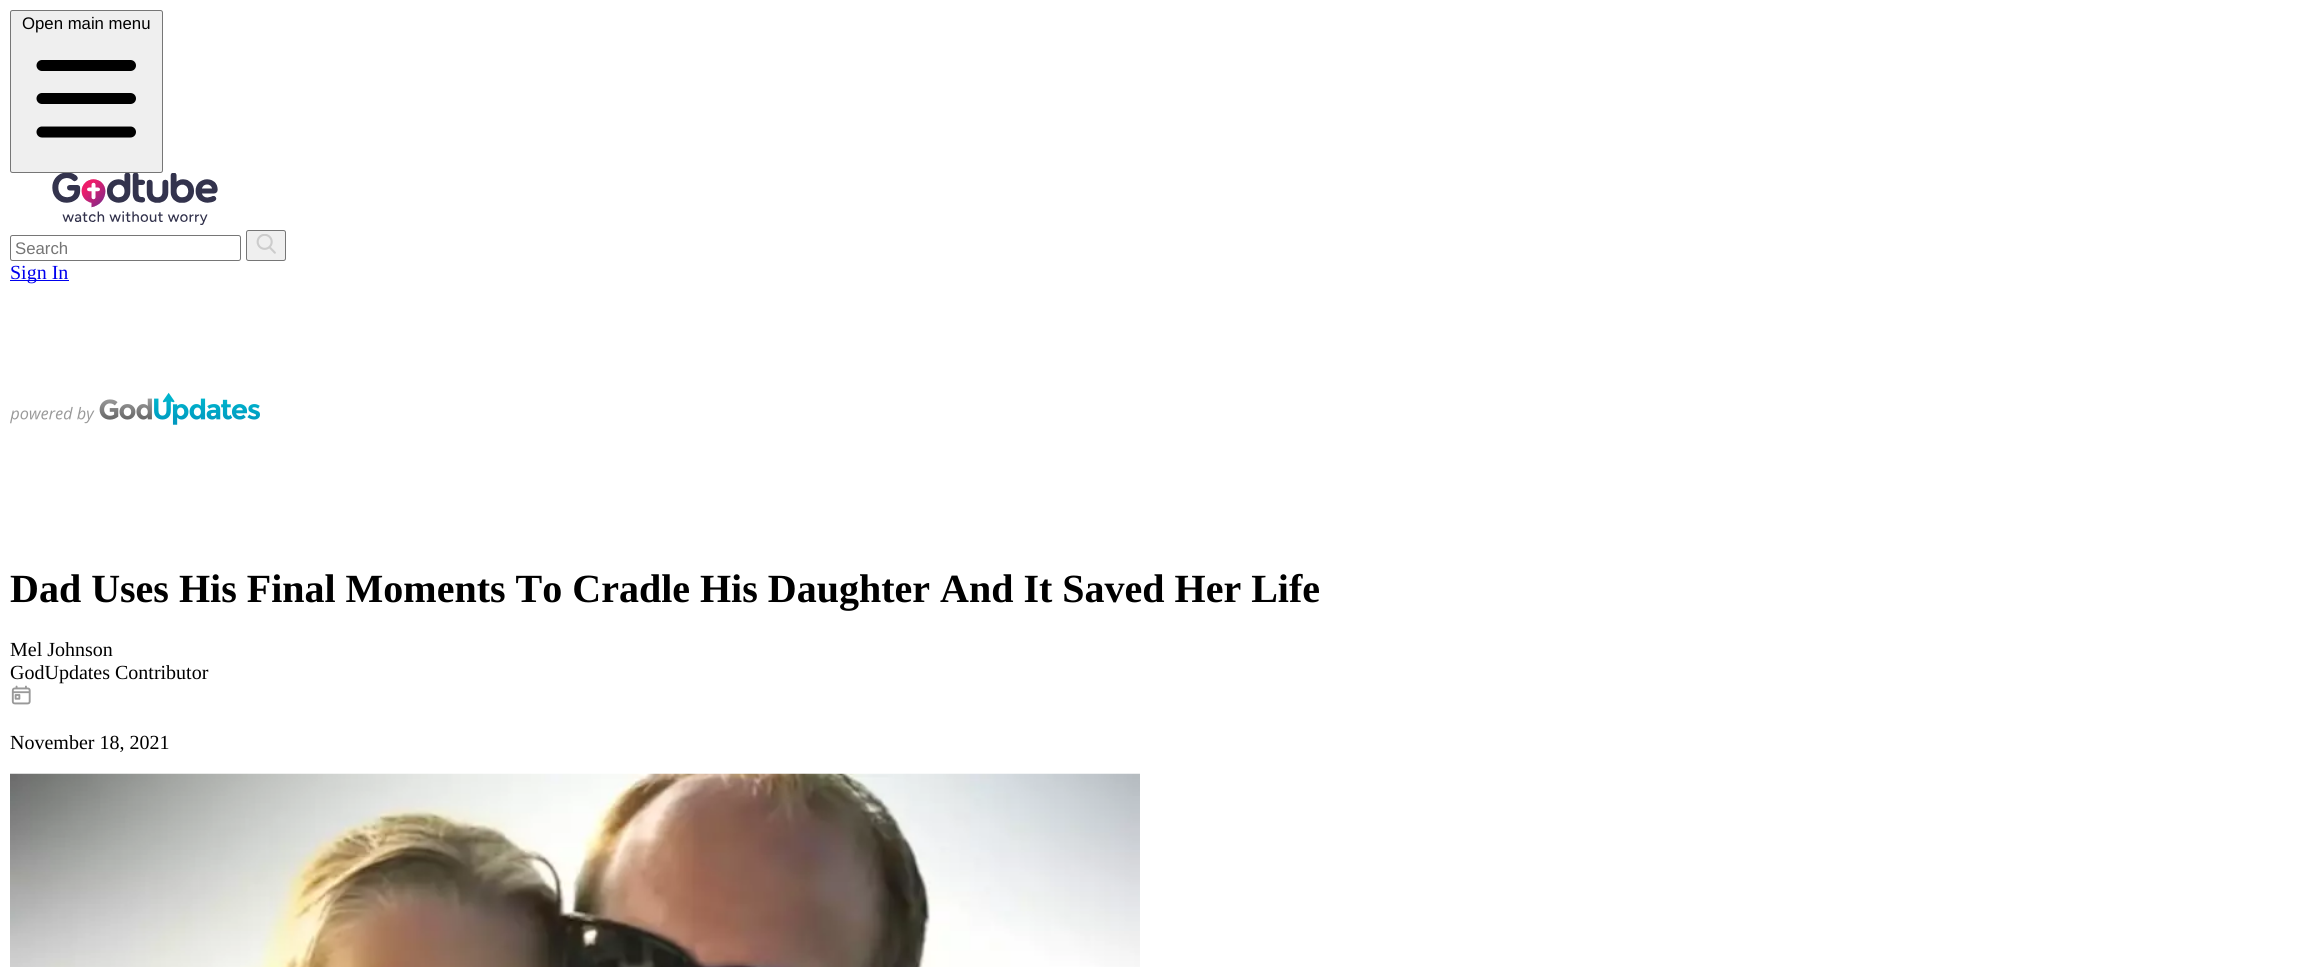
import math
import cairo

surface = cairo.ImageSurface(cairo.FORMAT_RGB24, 2314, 967)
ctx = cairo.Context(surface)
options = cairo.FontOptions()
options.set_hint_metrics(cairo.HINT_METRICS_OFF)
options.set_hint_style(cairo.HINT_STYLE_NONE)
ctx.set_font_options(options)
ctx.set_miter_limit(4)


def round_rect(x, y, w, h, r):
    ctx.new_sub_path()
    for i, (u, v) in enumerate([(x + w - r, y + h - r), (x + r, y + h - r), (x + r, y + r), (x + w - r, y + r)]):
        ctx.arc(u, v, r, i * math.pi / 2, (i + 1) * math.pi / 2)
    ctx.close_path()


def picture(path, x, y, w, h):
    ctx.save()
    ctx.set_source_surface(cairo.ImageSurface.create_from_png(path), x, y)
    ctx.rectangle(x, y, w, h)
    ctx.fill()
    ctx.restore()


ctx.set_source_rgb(1, 1, 1)
ctx.paint()
ctx.set_source_rgb(0.937, 0.937, 0.937)
round_rect(10.5, 10.5, 152, 162, 2)
ctx.fill_preserve()
ctx.set_source_rgb(0.463, 0.463, 0.463)
ctx.set_line_width(1)
ctx.stroke()
ctx.select_font_face("Liberation Sans")
ctx.set_font_size(16.75)
ctx.set_source_rgb(0, 0, 0)
ctx.move_to(22, 29)
ctx.show_text("Open main menu")
ctx.new_path()
ctx.move_to(42, 65.5)
ctx.line_to(130.5, 65.5)
ctx.move_to(42, 98.5)
ctx.line_to(130.5, 98.5)
ctx.move_to(42, 132)
ctx.line_to(130.5, 132)
ctx.set_line_width(11)
ctx.set_line_cap(cairo.LINE_CAP_ROUND)
ctx.set_line_join(cairo.LINE_JOIN_ROUND)
ctx.stroke()
picture("img1.png", 52, 173, 166, 52)
round_rect(10.5, 235.5, 230, 25, 2)
ctx.set_source_rgb(0.463, 0.463, 0.463)
ctx.set_line_width(1)
ctx.set_line_cap(cairo.LINE_CAP_BUTT)
ctx.set_line_join(cairo.LINE_JOIN_MITER)
ctx.stroke()
ctx.set_source_rgb(0.459, 0.459, 0.459)
ctx.move_to(15, 254)
ctx.show_text("Search")
ctx.set_source_rgb(0.937, 0.937, 0.937)
round_rect(246.5, 230.5, 39, 30, 2)
ctx.fill_preserve()
ctx.set_source_rgb(0.463, 0.463, 0.463)
ctx.stroke()
picture("img2.png", 256, 234, 20, 20)
ctx.set_source_rgb(0, 0, 0.933)
ctx.rectangle(10, 280, 59, 1)
ctx.fill()
ctx.select_font_face("Liberation Serif")
ctx.set_font_size(20)
ctx.move_to(10, 279)
ctx.show_text("Sign In")
picture("img3.png", 10, 392, 250, 33)
ctx.select_font_face("Liberation Serif", cairo.FONT_SLANT_NORMAL, cairo.FONT_WEIGHT_BOLD)
ctx.set_font_size(40)
ctx.set_source_rgb(0, 0, 0)
ctx.move_to(10, 602)
ctx.show_text("Dad Uses His Final Moments To Cradle His Daughter And It Saved Her Life")
ctx.select_font_face("Liberation Serif")
ctx.set_font_size(20)
ctx.move_to(10, 656)
ctx.show_text("Mel Johnson")
ctx.move_to(10, 679)
ctx.show_text("GodUpdates Contributor")
picture("img4.png", 11, 685, 20, 20)
ctx.move_to(10, 749)
ctx.show_text("November 18, 2021")
picture("img5.png", 10, 773, 1130, 194)
surface.write_to_png("page.png")
